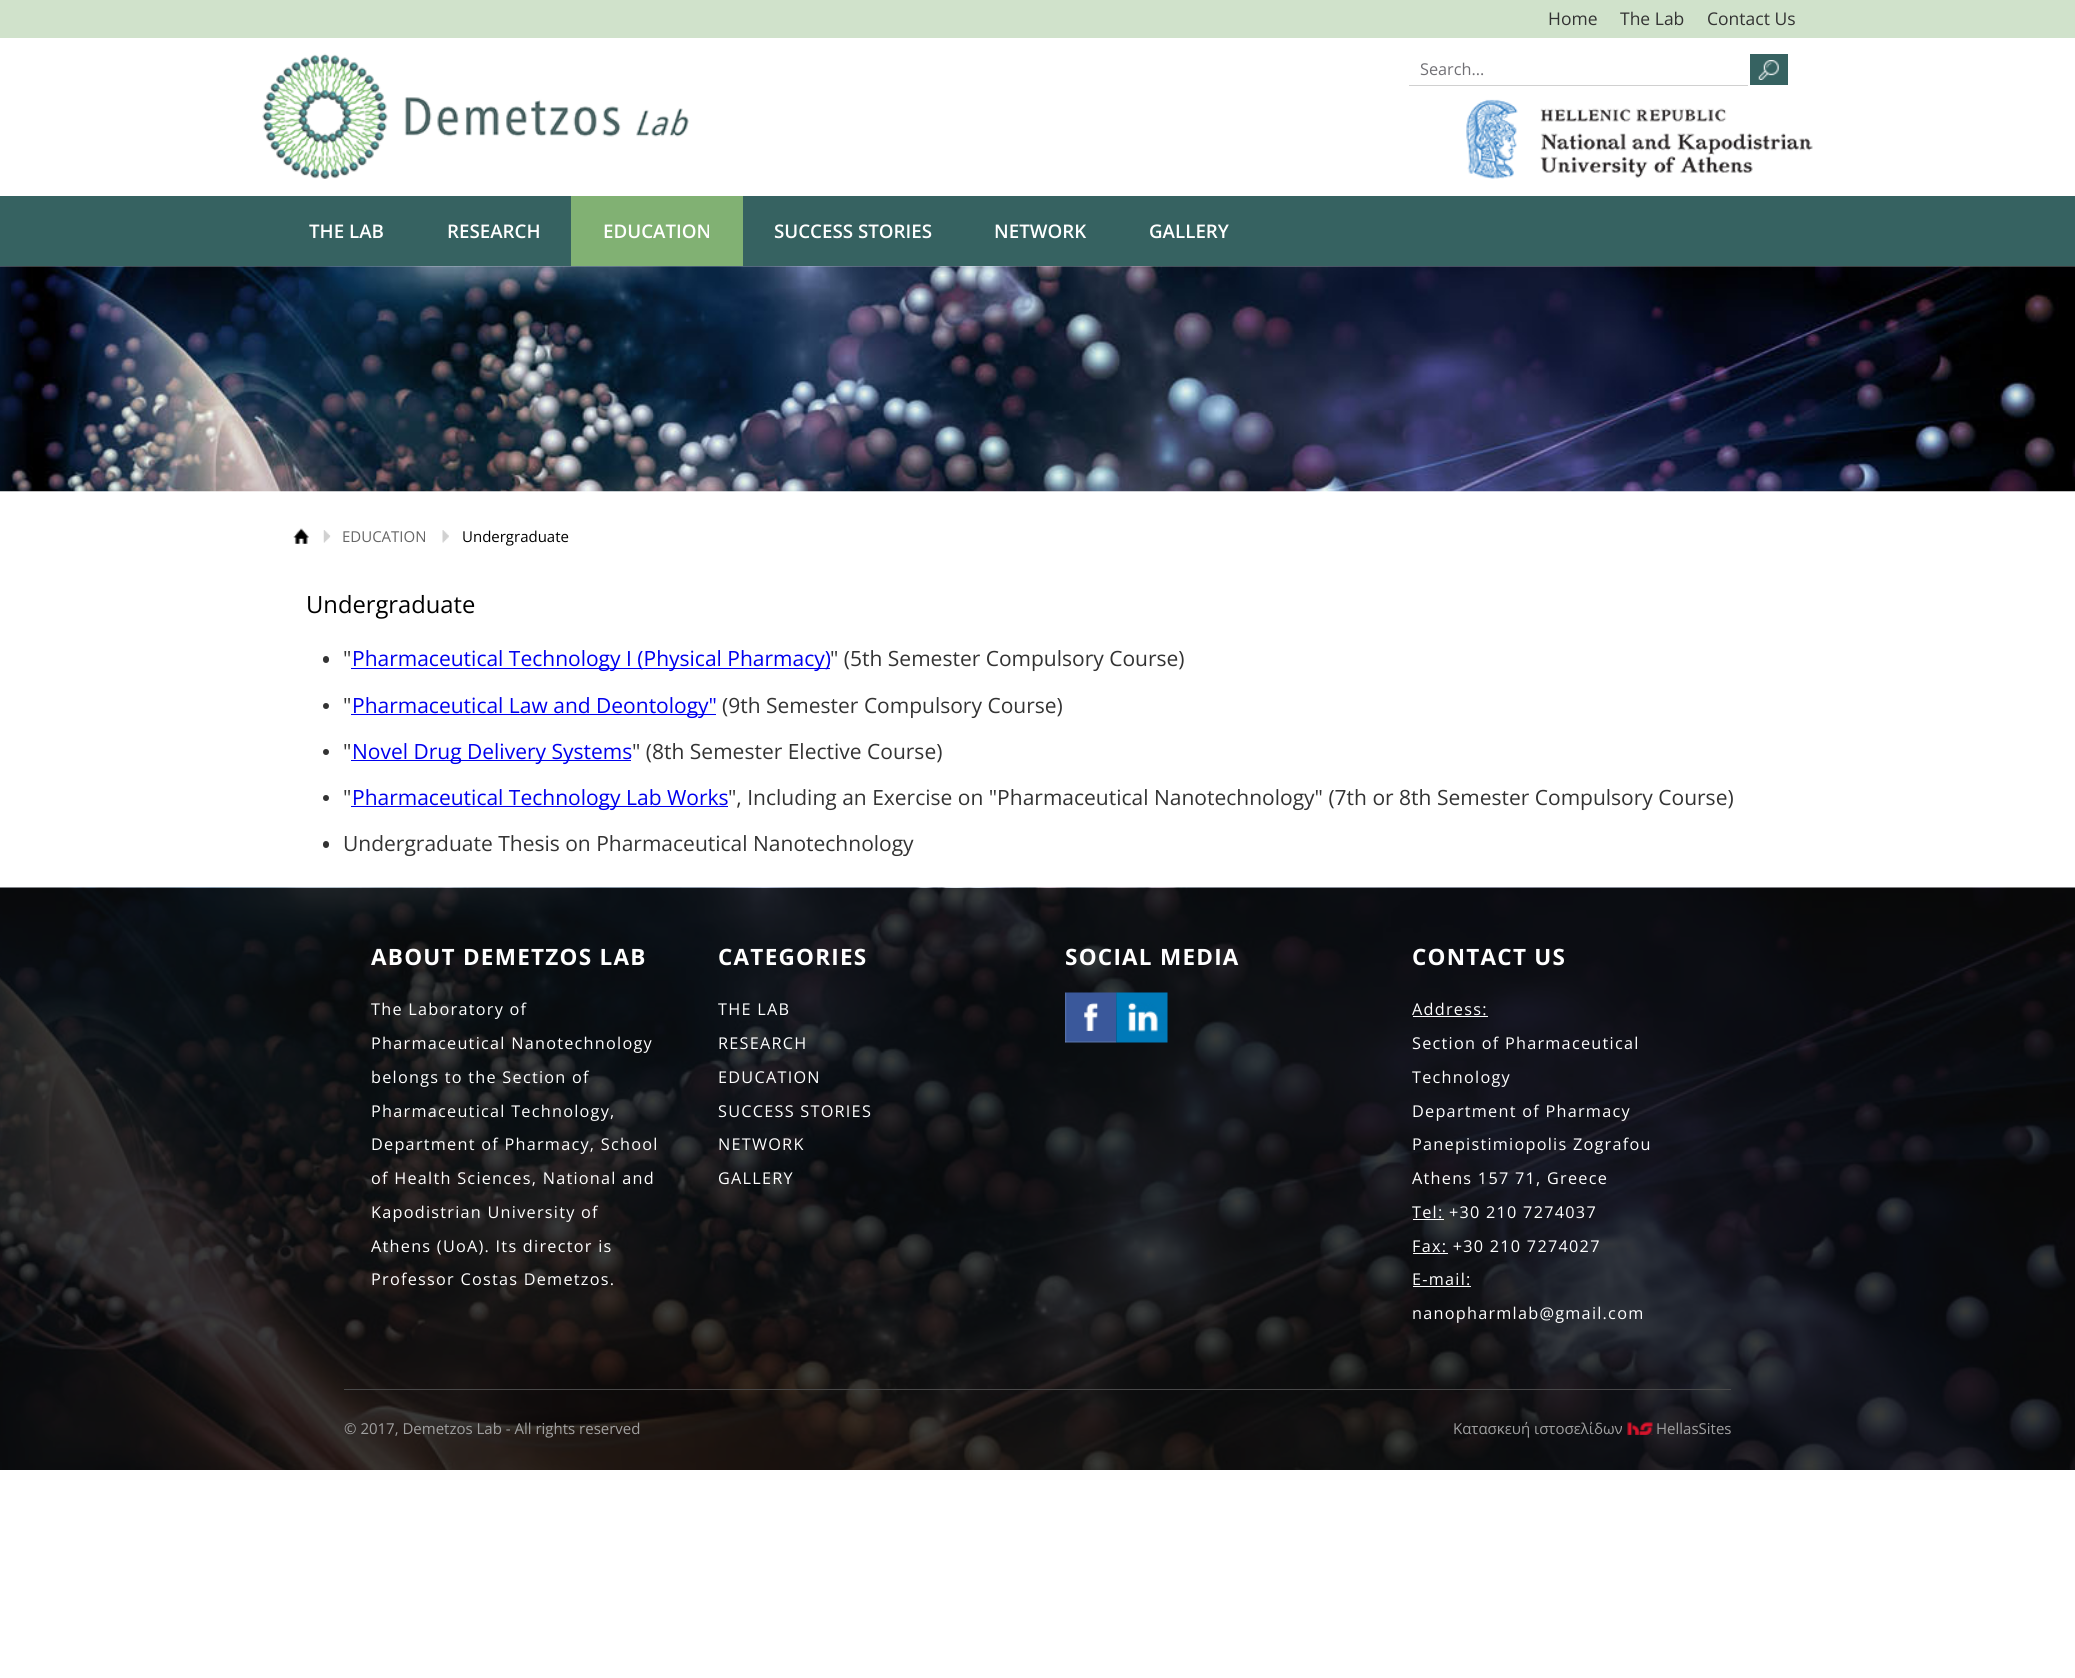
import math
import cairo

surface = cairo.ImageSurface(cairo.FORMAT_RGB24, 2075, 1678)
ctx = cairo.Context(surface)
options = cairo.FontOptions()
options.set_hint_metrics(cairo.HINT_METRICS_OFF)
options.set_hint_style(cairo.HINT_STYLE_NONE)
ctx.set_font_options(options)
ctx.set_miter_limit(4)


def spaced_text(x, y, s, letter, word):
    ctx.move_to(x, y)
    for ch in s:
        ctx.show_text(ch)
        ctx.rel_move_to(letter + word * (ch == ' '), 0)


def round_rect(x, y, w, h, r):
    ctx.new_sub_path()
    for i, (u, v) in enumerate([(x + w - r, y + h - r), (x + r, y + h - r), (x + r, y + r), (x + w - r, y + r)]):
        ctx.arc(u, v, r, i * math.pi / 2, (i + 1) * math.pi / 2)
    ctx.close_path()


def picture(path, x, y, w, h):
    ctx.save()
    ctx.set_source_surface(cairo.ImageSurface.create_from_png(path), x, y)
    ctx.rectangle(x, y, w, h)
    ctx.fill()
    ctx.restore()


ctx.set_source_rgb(1, 1, 1)
ctx.paint()
ctx.set_source_rgb(0.816, 0.886, 0.796)
ctx.rectangle(0, 0, 2075, 38)
ctx.fill()
ctx.select_font_face("Open Sans")
ctx.set_font_size(17.5)
ctx.set_source_rgb(0.2, 0.2, 0.2)
ctx.move_to(1548, 25)
ctx.show_text("Home")
ctx.move_to(1620, 25)
ctx.show_text("The Lab")
ctx.move_to(1707, 25)
ctx.show_text("Contact Us")
picture("img1.png", 262, 53, 427, 126)
ctx.set_source_rgb(0.816, 0.816, 0.816)
ctx.rectangle(1409, 85, 339, 1)
ctx.fill()
ctx.set_font_size(16.25)
ctx.set_source_rgb(0.443, 0.439, 0.459)
ctx.move_to(1420, 75)
ctx.show_text("Search...")
ctx.set_source_rgb(0.212, 0.384, 0.38)
ctx.rectangle(1750, 54, 38, 31)
ctx.fill()
picture("img2.png", 1758, 60, 21, 20)
picture("img3.png", 1466, 99, 347, 80)
ctx.rectangle(0, 196, 2075, 70)
ctx.fill()
ctx.select_font_face("Open Sans SemiBold")
ctx.set_font_size(18.75)
ctx.set_source_rgb(1, 1, 1)
ctx.move_to(309, 238)
ctx.show_text("THE LAB")
ctx.move_to(447, 238)
ctx.show_text("RESEARCH")
ctx.set_source_rgb(0.506, 0.694, 0.451)
ctx.rectangle(571, 196, 172, 70)
ctx.fill()
ctx.set_source_rgb(1, 1, 1)
ctx.move_to(603, 238)
ctx.show_text("EDUCATION")
ctx.move_to(774, 238)
ctx.show_text("SUCCESS STORIES")
ctx.move_to(994, 238)
ctx.show_text("NETWORK")
ctx.move_to(1149, 238)
ctx.show_text("GALLERY")
picture("img4.png", 0, 266, 2075, 226)
picture("img5.png", 293, 528, 16, 16)
picture("img6.png", 323, 530, 8, 13)
ctx.select_font_face("Open Sans")
ctx.set_font_size(15)
ctx.set_source_rgb(0.4, 0.4, 0.4)
ctx.move_to(342, 542)
ctx.show_text("EDUCATION")
picture("img7.png", 442, 530, 7, 13)
ctx.set_source_rgb(0, 0, 0)
ctx.move_to(462, 542)
ctx.show_text("Undergraduate")
ctx.set_font_size(23.75)
ctx.move_to(306, 613)
ctx.show_text("Undergraduate")
ctx.set_font_size(21)
ctx.set_source_rgb(0.2, 0.2, 0.2)
ctx.move_to(343, 666)
ctx.show_text("\"")
ctx.set_source_rgb(0, 0, 0.933)
ctx.rectangle(351, 668, 479, 1)
ctx.fill()
ctx.move_to(352, 666)
ctx.show_text("Pharmaceutical Technology Ι (Physical Pharmacy)")
ctx.set_source_rgb(0.2, 0.2, 0.2)
ctx.move_to(830, 666)
ctx.show_text("\" (5th Semester Compulsory Course)")
round_rect(323, 656, 6, 7, 3)
ctx.fill()
ctx.move_to(343, 713)
ctx.show_text("\"")
ctx.set_source_rgb(0, 0, 0.933)
ctx.rectangle(351, 714, 365, 1)
ctx.fill()
ctx.move_to(352, 713)
ctx.show_text("Pharmaceutical Law and Deontology\"")
ctx.set_source_rgb(0.2, 0.2, 0.2)
ctx.move_to(722, 713)
ctx.show_text("(9th Semester Compulsory Course)")
ctx.new_path()
ctx.arc(326, 706, 3, 0, 2 * math.pi)
ctx.fill()
ctx.move_to(343, 759)
ctx.show_text("\"")
ctx.set_source_rgb(0, 0, 0.933)
ctx.rectangle(351, 760, 280, 1)
ctx.fill()
ctx.move_to(352, 759)
ctx.show_text("Novel Drug Delivery Systems")
ctx.set_source_rgb(0.2, 0.2, 0.2)
ctx.move_to(632, 759)
ctx.show_text("\" (8th Semester Elective Course)")
ctx.new_path()
ctx.arc(326, 752, 3, 0, 2 * math.pi)
ctx.fill()
ctx.move_to(343, 805)
ctx.show_text("\"")
ctx.set_source_rgb(0, 0, 0.933)
ctx.rectangle(351, 806, 377, 1)
ctx.fill()
ctx.move_to(352, 805)
ctx.show_text("Pharmaceutical Technology Lab Works")
ctx.set_source_rgb(0.2, 0.2, 0.2)
ctx.move_to(728, 805)
ctx.show_text("\", Including an Exercise on \"Pharmaceutical Nanotechnology\" (7th or 8th Semester Compulsory Course)")
ctx.new_path()
ctx.arc(326, 798, 3, 0, 2 * math.pi)
ctx.fill()
round_rect(323, 841, 6, 7, 3)
ctx.fill()
ctx.move_to(343, 851)
ctx.show_text("Undergraduate Thesis on Pharmaceutical Nanotechnology")
picture("img8.png", 0, 887, 2075, 583)
ctx.select_font_face("Open Sans", cairo.FONT_SLANT_NORMAL, cairo.FONT_WEIGHT_BOLD)
ctx.set_font_size(22.5)
ctx.set_source_rgb(1, 1, 1)
spaced_text(371, 965, "ABOUT DEMETZOS LAB", 1.25, 0)
ctx.select_font_face("Open Sans")
ctx.set_font_size(16.25)
spaced_text(371, 1015, "The Laboratory of", 1.25, 0)
spaced_text(371, 1049, "Pharmaceutical Nanotechnology", 1.25, 0)
spaced_text(371, 1083, "belongs to the Section of", 1.25, 0)
spaced_text(371, 1117, "Pharmaceutical Technology,", 1.25, 0)
spaced_text(371, 1150, "Department of Pharmacy, School", 1.25, 0)
spaced_text(371, 1184, "of Health Sciences, National and", 1.25, 0)
spaced_text(371, 1218, "Kapodistrian University of", 1.25, 0)
spaced_text(371, 1252, "Athens (UoA). Its director is", 1.25, 0)
spaced_text(371, 1285, "Professor Costas Demetzos.", 1.25, 0)
ctx.select_font_face("Open Sans", cairo.FONT_SLANT_NORMAL, cairo.FONT_WEIGHT_BOLD)
ctx.set_font_size(22.5)
spaced_text(718, 965, "CATEGORIES", 1.25, 0)
ctx.select_font_face("Open Sans")
ctx.set_font_size(16.25)
spaced_text(718, 1015, "THE LAB", 1.25, 0)
spaced_text(718, 1049, "RESEARCH", 1.25, 0)
spaced_text(718, 1083, "EDUCATION", 1.25, 0)
spaced_text(718, 1117, "SUCCESS STORIES", 1.25, 0)
spaced_text(718, 1150, "NETWORK", 1.25, 0)
spaced_text(718, 1184, "GALLERY", 1.25, 0)
ctx.select_font_face("Open Sans", cairo.FONT_SLANT_NORMAL, cairo.FONT_WEIGHT_BOLD)
ctx.set_font_size(22.5)
spaced_text(1065, 965, "SOCIAL MEDIA", 1.25, 0)
picture("img9.png", 1065, 992, 52, 51)
picture("img10.png", 1116, 992, 52, 51)
spaced_text(1412, 965, "CONTACT US", 1.25, 0)
ctx.select_font_face("Open Sans")
ctx.set_font_size(16.25)
spaced_text(1412, 1015, "Address:", 1.25, 0)
ctx.rectangle(1413, 1016, 75, 1)
ctx.fill()
spaced_text(1412, 1049, "Section of Pharmaceutical", 1.25, 0)
spaced_text(1412, 1083, "Technology", 1.25, 0)
spaced_text(1412, 1117, "Department of Pharmacy", 1.25, 0)
spaced_text(1412, 1150, "Panepistimiopolis Zografou", 1.25, 0)
spaced_text(1412, 1184, "Athens 157 71, Greece", 1.25, 0)
spaced_text(1412, 1218, "Tel: +30 210 7274037", 1.25, 0)
ctx.rectangle(1413, 1219, 31, 1)
ctx.fill()
spaced_text(1412, 1252, "Fax: +30 210 7274027", 1.25, 0)
ctx.rectangle(1413, 1253, 35, 1)
ctx.fill()
spaced_text(1412, 1285, "E-mail:", 1.25, 0)
ctx.rectangle(1413, 1286, 58, 1)
ctx.fill()
spaced_text(1412, 1319, "nanopharmlab@gmail.com", 1.25, 0)
ctx.set_source_rgb(0.286, 0.286, 0.29)
ctx.rectangle(344, 1389, 1387, 1)
ctx.fill()
ctx.set_font_size(15)
ctx.set_source_rgb(0.627, 0.627, 0.627)
ctx.move_to(344, 1434)
ctx.show_text("© 2017, Demetzos Lab - All rights reserved")
ctx.move_to(1453, 1434)
ctx.show_text("Κατασκευή ιστοσελίδων")
picture("img11.png", 1627, 1422, 26, 13)
ctx.move_to(1656, 1434)
ctx.show_text("HellasSites")
surface.write_to_png("page.png")
